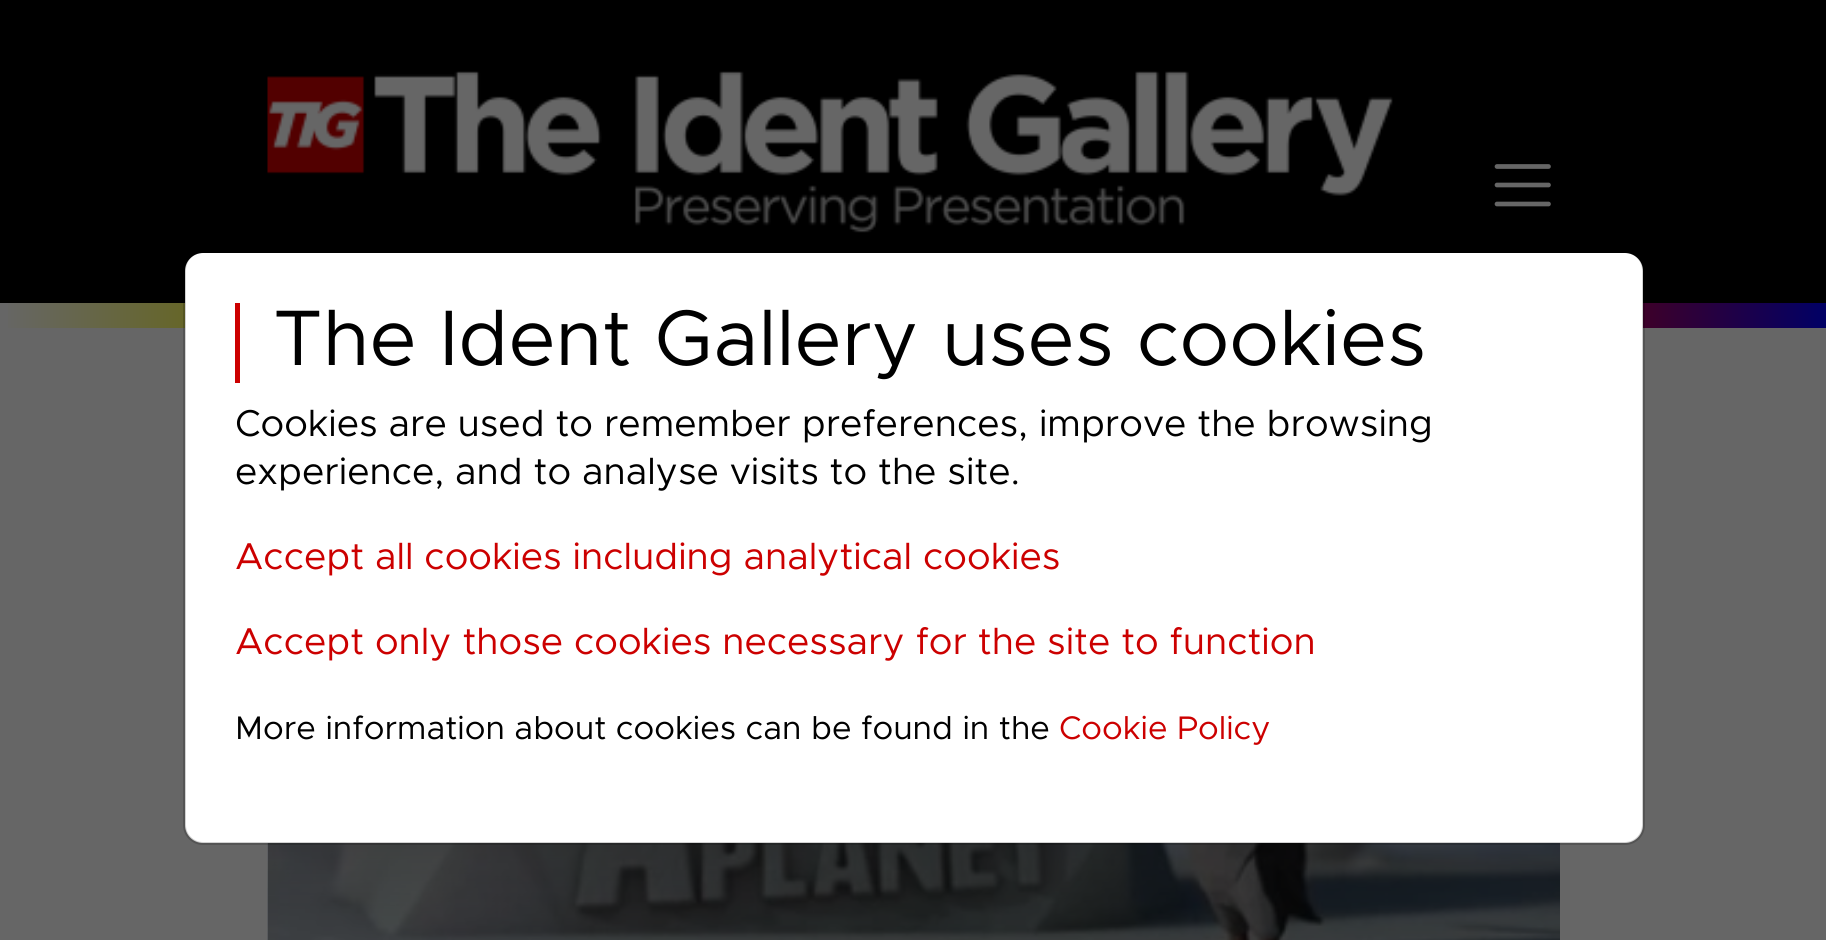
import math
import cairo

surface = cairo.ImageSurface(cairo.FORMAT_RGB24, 1826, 940)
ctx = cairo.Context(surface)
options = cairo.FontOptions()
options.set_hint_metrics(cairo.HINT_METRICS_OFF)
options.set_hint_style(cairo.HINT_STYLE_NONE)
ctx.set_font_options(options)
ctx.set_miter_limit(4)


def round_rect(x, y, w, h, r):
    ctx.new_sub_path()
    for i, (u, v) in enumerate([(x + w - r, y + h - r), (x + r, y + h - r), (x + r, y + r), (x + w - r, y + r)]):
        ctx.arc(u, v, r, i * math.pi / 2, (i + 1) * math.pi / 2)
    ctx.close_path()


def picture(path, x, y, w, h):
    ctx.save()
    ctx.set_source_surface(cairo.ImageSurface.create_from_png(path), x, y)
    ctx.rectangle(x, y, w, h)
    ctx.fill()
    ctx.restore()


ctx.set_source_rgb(0.4, 0.4, 0.4)
ctx.paint()
ctx.set_source_rgb(0, 0, 0)
ctx.rectangle(0, 0, 1826, 303)
ctx.fill()
picture("img1.png", 267, 71, 1126, 162)
ctx.new_path()
ctx.move_to(1497, 166.5)
ctx.line_to(1548.5, 166.5)
ctx.move_to(1497, 185)
ctx.line_to(1548.5, 185)
ctx.move_to(1497, 204)
ctx.line_to(1548.5, 204)
ctx.set_source_rgb(0.4, 0.4, 0.4)
ctx.set_line_width(4.7)
ctx.set_line_cap(cairo.LINE_CAP_ROUND)
ctx.stroke()
gradient = cairo.LinearGradient(0, 315, 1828, 315)
gradient.add_color_stop_rgba(0, 0.4, 0.4, 0.4, 1)
gradient.add_color_stop_rgba(0.17, 0.4, 0.4, 0, 1)
gradient.add_color_stop_rgba(0.33, 0, 0.4, 0.4, 1)
gradient.add_color_stop_rgba(0.5, 0, 0.4, 0, 1)
gradient.add_color_stop_rgba(0.67, 0.4, 0, 0.4, 1)
gradient.add_color_stop_rgba(0.83, 0.4, 0, 0, 1)
gradient.add_color_stop_rgba(1, 0, 0, 0.4, 1)
ctx.set_source(gradient)
ctx.rectangle(8, 303, 1818, 25)
ctx.fill()
ctx.set_source_rgb(1, 1, 1)
round_rect(185, 253, 1458, 590, 18)
ctx.fill()
picture("img2.png", 267, 843, 1, 97)
picture("img3.png", 267, 843, 1293, 97)
round_rect(184.5, 251.5, 1459, 592, 18.5)
ctx.set_source_rgba(0, 0, 0, 0.18)
ctx.set_line_width(3)
ctx.set_line_cap(cairo.LINE_CAP_BUTT)
ctx.stroke()
ctx.set_source_rgb(0.8, 0, 0)
ctx.rectangle(235, 303, 5, 80)
ctx.fill()
ctx.select_font_face("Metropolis")
ctx.set_font_size(79)
ctx.set_source_rgb(0, 0, 0)
ctx.move_to(273, 365)
ctx.show_text("The Ident Gallery uses cookies")
ctx.set_font_size(37.5)
ctx.move_to(235, 436)
ctx.show_text("Cookies are used to remember preferences, improve the browsing")
ctx.move_to(235, 484)
ctx.show_text("experience, and to analyse visits to the site.")
ctx.set_source_rgb(0.8, 0, 0)
ctx.move_to(235, 569)
ctx.show_text("Accept all cookies including analytical cookies")
ctx.move_to(235, 654)
ctx.show_text("Accept only those cookies necessary for the site to function")
ctx.set_font_size(32.8)
ctx.set_source_rgb(0, 0, 0)
ctx.move_to(235, 739)
ctx.show_text("More information about cookies can be found in the")
ctx.set_source_rgb(0.8, 0, 0)
ctx.move_to(1059, 739)
ctx.show_text("Cookie Policy")
surface.write_to_png("page.png")
